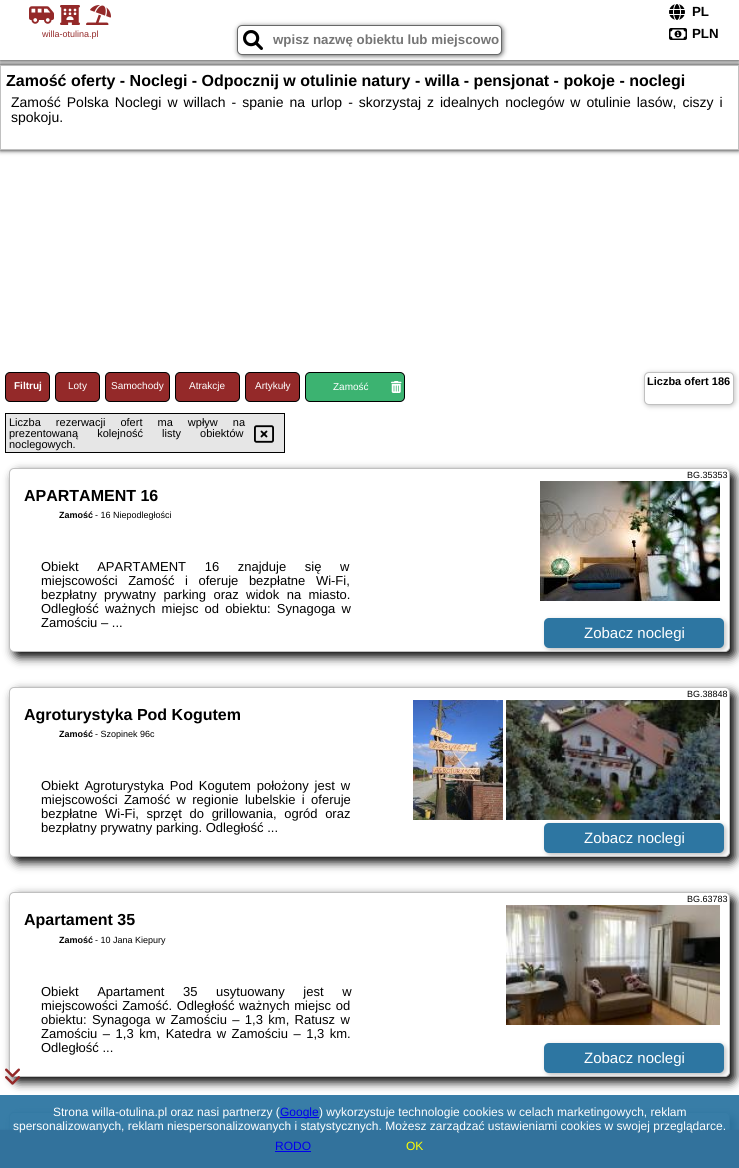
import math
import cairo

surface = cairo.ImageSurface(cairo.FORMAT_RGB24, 739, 1168)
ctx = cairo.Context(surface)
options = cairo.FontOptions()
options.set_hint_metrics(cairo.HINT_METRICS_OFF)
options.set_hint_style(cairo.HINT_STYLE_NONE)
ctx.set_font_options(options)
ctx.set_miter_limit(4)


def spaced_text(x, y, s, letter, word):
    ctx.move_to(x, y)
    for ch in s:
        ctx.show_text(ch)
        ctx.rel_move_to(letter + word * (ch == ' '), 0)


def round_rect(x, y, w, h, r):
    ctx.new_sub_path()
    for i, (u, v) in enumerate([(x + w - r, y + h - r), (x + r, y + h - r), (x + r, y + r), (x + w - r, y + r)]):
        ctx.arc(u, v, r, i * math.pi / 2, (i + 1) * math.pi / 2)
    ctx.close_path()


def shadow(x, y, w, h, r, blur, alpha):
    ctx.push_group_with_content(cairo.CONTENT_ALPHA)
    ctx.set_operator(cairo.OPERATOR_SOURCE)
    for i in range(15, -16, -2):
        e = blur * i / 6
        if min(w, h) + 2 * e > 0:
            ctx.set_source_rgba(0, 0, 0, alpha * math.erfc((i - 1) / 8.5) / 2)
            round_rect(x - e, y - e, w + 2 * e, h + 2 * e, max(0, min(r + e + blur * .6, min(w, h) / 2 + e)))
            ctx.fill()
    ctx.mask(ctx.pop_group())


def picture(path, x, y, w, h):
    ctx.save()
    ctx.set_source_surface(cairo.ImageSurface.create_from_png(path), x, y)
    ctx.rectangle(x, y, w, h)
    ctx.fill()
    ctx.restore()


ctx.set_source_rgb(1, 1, 1)
ctx.paint()
ctx.set_source_rgb(0.22, 0.49, 0.655)
ctx.rectangle(0, 1095, 739, 35)
ctx.fill()
ctx.save()
ctx.set_fill_rule(cairo.FILL_RULE_EVEN_ODD)
ctx.new_path()
ctx.move_to(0, 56)
ctx.line_to(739, 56)
ctx.line_to(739, 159)
ctx.line_to(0, 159)
ctx.close_path()
ctx.move_to(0, 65)
ctx.line_to(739, 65)
ctx.line_to(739, 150)
ctx.line_to(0, 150)
ctx.close_path()
ctx.clip()
ctx.set_source_rgb(0, 0, 0)
shadow(0, 65, 739, 85, 0, 2.5, 1)
ctx.restore()
ctx.rectangle(0.5, 65.5, 738, 84)
ctx.set_source_rgb(0.753, 0.753, 0.753)
ctx.set_line_width(1)
ctx.stroke()
ctx.set_source_rgb(0, 0, 0)
shadow(0, 0, 739, 60, 0, 2.5, 1)
ctx.set_source_rgb(1, 1, 1)
ctx.rectangle(0, 0, 739, 60)
ctx.fill()
picture("img1.png", 669, 4, 16, 16)
ctx.select_font_face("Liberation Sans", cairo.FONT_SLANT_NORMAL, cairo.FONT_WEIGHT_BOLD)
ctx.set_font_size(13.3)
ctx.set_source_rgb(0, 0, 0)
ctx.move_to(692, 16)
ctx.show_text("PL")
picture("img2.png", 29, 6, 25, 18)
picture("img3.png", 60, 5, 20, 20)
picture("img4.png", 86, 5, 25, 20)
ctx.select_font_face("Liberation Sans")
ctx.set_font_size(9)
ctx.set_source_rgb(0.58, 0.161, 0.161)
ctx.move_to(42, 37)
ctx.show_text("willa-otulina.pl")
ctx.set_source_rgb(0.404, 0.408, 0.408)
shadow(238, 26, 265, 30, 5, 2.5, 1)
ctx.set_source_rgb(1, 1, 1)
round_rect(237.5, 25.5, 264, 29, 4.5)
ctx.fill_preserve()
ctx.set_source_rgb(0.404, 0.408, 0.408)
ctx.stroke()
picture("img5.png", 243, 30, 20, 20)
ctx.select_font_face("Liberation Sans", cairo.FONT_SLANT_NORMAL, cairo.FONT_WEIGHT_BOLD)
ctx.set_font_size(13.3)
ctx.set_source_rgb(0.459, 0.459, 0.459)
ctx.move_to(273, 44)
ctx.show_text("wpisz nazwę obiektu lub miejscowo")
picture("img6.png", 669, 28, 18, 12)
ctx.set_source_rgb(0, 0, 0)
ctx.move_to(692, 38)
ctx.show_text("PLN")
ctx.set_font_size(16)
ctx.move_to(6, 86)
ctx.show_text("Zamość oferty - Noclegi - Odpocznij w otulinie natury - willa - pensjonat - pokoje - noclegi")
ctx.select_font_face("Liberation Sans")
ctx.set_font_size(14)
spaced_text(11, 107, "Zamość Polska Noclegi w willach - spanie na urlop - skorzystaj z idealnych noclegów w otulinie lasów, ciszy i", 0, 2.1)
ctx.move_to(11, 122)
ctx.show_text("spokoju.")
ctx.set_source_rgb(0.58, 0.161, 0.161)
round_rect(5.5, 372.5, 44, 29, 4.5)
ctx.fill_preserve()
ctx.set_source_rgb(0, 0, 0)
ctx.stroke()
ctx.select_font_face("Liberation Sans", cairo.FONT_SLANT_NORMAL, cairo.FONT_WEIGHT_BOLD)
ctx.set_font_size(10)
ctx.set_source_rgb(1, 1, 1)
ctx.move_to(14, 389)
ctx.show_text("Filtruj")
ctx.set_source_rgb(0.58, 0.161, 0.161)
round_rect(55.5, 372.5, 44, 29, 4.5)
ctx.fill_preserve()
ctx.set_source_rgb(0, 0, 0)
ctx.stroke()
ctx.select_font_face("Liberation Sans")
ctx.set_source_rgb(1, 1, 1)
ctx.move_to(68, 389)
ctx.show_text("Loty")
ctx.set_source_rgb(0.58, 0.161, 0.161)
round_rect(105.5, 372.5, 64, 29, 4.5)
ctx.fill_preserve()
ctx.set_source_rgb(0, 0, 0)
ctx.stroke()
ctx.set_source_rgb(1, 1, 1)
ctx.move_to(111, 389)
ctx.show_text("Samochody")
ctx.set_source_rgb(0.58, 0.161, 0.161)
round_rect(175.5, 372.5, 64, 29, 4.5)
ctx.fill_preserve()
ctx.set_source_rgb(0, 0, 0)
ctx.stroke()
ctx.set_source_rgb(1, 1, 1)
ctx.move_to(189, 389)
ctx.show_text("Atrakcje")
ctx.set_source_rgb(0.58, 0.161, 0.161)
round_rect(245.5, 372.5, 54, 29, 4.5)
ctx.fill_preserve()
ctx.set_source_rgb(0, 0, 0)
ctx.stroke()
ctx.set_source_rgb(1, 1, 1)
ctx.move_to(255, 389)
ctx.show_text("Artykuły")
ctx.set_source_rgb(0.235, 0.702, 0.443)
round_rect(305.5, 372.5, 99, 29, 4.5)
ctx.fill_preserve()
ctx.set_source_rgb(0, 0, 0)
ctx.stroke()
ctx.set_source_rgb(1, 1, 1)
ctx.move_to(333, 390)
ctx.show_text("Zamość")
picture("img7.png", 391, 381, 11, 12)
ctx.set_source_rgb(0.753, 0.753, 0.753)
shadow(645, 373, 90, 33, 5, 2.5, 1)
ctx.set_source_rgb(1, 1, 1)
round_rect(644.5, 372.5, 89, 32, 4.5)
ctx.fill_preserve()
ctx.set_source_rgb(0.753, 0.753, 0.753)
ctx.stroke()
ctx.select_font_face("Liberation Sans", cairo.FONT_SLANT_NORMAL, cairo.FONT_WEIGHT_BOLD)
ctx.set_font_size(11)
ctx.set_source_rgb(0, 0, 0)
ctx.move_to(647, 385)
ctx.show_text("Liczba ofert 186")
ctx.set_source_rgb(0.902, 0.902, 0.902)
ctx.rectangle(5.5, 413.5, 279, 39)
ctx.fill_preserve()
ctx.set_source_rgb(0, 0, 0)
ctx.stroke()
ctx.select_font_face("Liberation Sans")
spaced_text(9, 426, "Liczba rezerwacji ofert ma wpływ na", 0, 12)
spaced_text(9, 437, "prezentowaną kolejność listy obiektów", 0, 16)
picture("img8.png", 254, 425, 20, 18)
ctx.move_to(9, 448)
ctx.show_text("noclegowych.")
ctx.set_source_rgb(0, 0, 0)
shadow(14, 473, 721, 184, 5, 5, 1)
ctx.set_source_rgb(1, 1, 1)
round_rect(9.5, 468.5, 720, 183, 4.5)
ctx.fill_preserve()
ctx.set_source_rgb(0.753, 0.753, 0.753)
ctx.stroke()
ctx.set_font_size(9)
ctx.set_source_rgb(0, 0, 0)
ctx.move_to(687, 478)
ctx.show_text("BG.35353")
ctx.select_font_face("Liberation Sans", cairo.FONT_SLANT_NORMAL, cairo.FONT_WEIGHT_BOLD)
ctx.set_font_size(16)
ctx.move_to(24, 501)
ctx.show_text("APARTAMENT 16")
ctx.set_font_size(9)
ctx.move_to(59, 518)
ctx.show_text("Zamość")
ctx.select_font_face("Liberation Sans")
ctx.move_to(95, 518)
ctx.show_text("- 16 Niepodległości")
ctx.set_font_size(13)
spaced_text(41, 571, "Obiekt APARTAMENT 16 znajduje się w", 0, 15)
spaced_text(41, 585, "miejscowości Zamość i oferuje bezpłatne Wi-Fi,", 0, 7)
spaced_text(41, 599, "bezpłatny prywatny parking oraz widok na miasto.", 0, 3.75)
spaced_text(41, 613, "Odległość ważnych miejsc od obiektu: Synagoga w", 0, 2.5)
ctx.move_to(41, 627)
ctx.show_text("Zamościu – ...")
picture("img9.png", 540, 481, 180, 120)
ctx.save()
round_rect(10, 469, 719, 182, 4)
ctx.clip()
ctx.set_source_rgb(0.753, 0.753, 0.753)
shadow(546, 620, 180, 30, 5, 2.5, 1)
ctx.restore()
ctx.set_source_rgb(0.176, 0.463, 0.635)
round_rect(544, 618, 180, 30, 5)
ctx.fill()
ctx.set_font_size(15)
ctx.set_source_rgb(1, 1, 1)
ctx.move_to(584, 638)
ctx.show_text("Zobacz noclegi")
ctx.set_source_rgb(0, 0, 0)
shadow(14, 692, 721, 170, 5, 5, 1)
ctx.set_source_rgb(1, 1, 1)
round_rect(9.5, 687.5, 720, 169, 4.5)
ctx.fill_preserve()
ctx.set_source_rgb(0.753, 0.753, 0.753)
ctx.stroke()
ctx.set_font_size(9)
ctx.set_source_rgb(0, 0, 0)
ctx.move_to(687, 697)
ctx.show_text("BG.38848")
ctx.select_font_face("Liberation Sans", cairo.FONT_SLANT_NORMAL, cairo.FONT_WEIGHT_BOLD)
ctx.set_font_size(16)
ctx.move_to(24, 720)
ctx.show_text("Agroturystyka Pod Kogutem")
ctx.set_font_size(9)
ctx.move_to(59, 737)
ctx.show_text("Zamość")
ctx.select_font_face("Liberation Sans")
ctx.move_to(95, 737)
ctx.show_text("- Szopinek 96c")
ctx.set_font_size(13)
spaced_text(41, 790, "Obiekt Agroturystyka Pod Kogutem położony jest w", 0, 2.25)
spaced_text(41, 804, "miejscowości Zamość w regionie lubelskie i oferuje", 0, 2.75)
spaced_text(41, 818, "bezpłatne Wi-Fi, sprzęt do grillowania, ogród oraz", 0, 4)
ctx.move_to(41, 832)
ctx.show_text("bezpłatny prywatny parking. Odległość ...")
picture("img10.png", 413, 700, 90, 120)
picture("img11.png", 506, 700, 214, 120)
ctx.save()
round_rect(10, 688, 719, 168, 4)
ctx.clip()
ctx.set_source_rgb(0.753, 0.753, 0.753)
shadow(546, 825, 180, 30, 5, 2.5, 1)
ctx.restore()
ctx.set_source_rgb(0.176, 0.463, 0.635)
round_rect(544, 823, 180, 30, 5)
ctx.fill()
ctx.set_font_size(15)
ctx.set_source_rgb(1, 1, 1)
ctx.move_to(584, 843)
ctx.show_text("Zobacz noclegi")
ctx.set_source_rgb(0, 0, 0)
shadow(14, 897, 721, 185, 5, 5, 1)
ctx.set_source_rgb(1, 1, 1)
round_rect(9.5, 892.5, 720, 184, 4.5)
ctx.fill_preserve()
ctx.set_source_rgb(0.753, 0.753, 0.753)
ctx.stroke()
ctx.set_font_size(9)
ctx.set_source_rgb(0, 0, 0)
ctx.move_to(687, 902)
ctx.show_text("BG.63783")
ctx.select_font_face("Liberation Sans", cairo.FONT_SLANT_NORMAL, cairo.FONT_WEIGHT_BOLD)
ctx.set_font_size(16)
ctx.move_to(24, 925)
ctx.show_text("Apartament 35")
ctx.set_font_size(9)
ctx.move_to(59, 943)
ctx.show_text("Zamość")
ctx.select_font_face("Liberation Sans")
ctx.move_to(95, 943)
ctx.show_text("- 10 Jana Kiepury")
ctx.set_font_size(13)
spaced_text(41, 996, "Obiekt Apartament 35 usytuowany jest w", 0, 15)
spaced_text(41, 1010, "miejscowości Zamość. Odległość ważnych miejsc od", 0, 1)
spaced_text(41, 1024, "obiektu: Synagoga w Zamościu – 1,3 km, Ratusz w", 0, 1.75)
spaced_text(41, 1038, "Zamościu – 1,3 km, Katedra w Zamościu – 1,3 km.", 0, 1.9)
ctx.move_to(41, 1052)
ctx.show_text("Odległość ...")
picture("img12.png", 506, 905, 214, 120)
ctx.save()
round_rect(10, 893, 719, 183, 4)
ctx.clip()
ctx.set_source_rgb(0.753, 0.753, 0.753)
shadow(546, 1045, 180, 30, 5, 2.5, 1)
ctx.restore()
ctx.set_source_rgb(0.176, 0.463, 0.635)
round_rect(544, 1043, 180, 30, 5)
ctx.fill()
ctx.set_font_size(15)
ctx.set_source_rgb(1, 1, 1)
ctx.move_to(584, 1063)
ctx.show_text("Zobacz noclegi")
picture("img13.png", 5, 1068, 15, 17)
ctx.set_source_rgb(0.169, 0.439, 0.604)
shadow(14, 1117, 721, 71, 5, 5, 1)
ctx.set_source_rgb(0.22, 0.49, 0.655)
ctx.new_path()
ctx.move_to(14, 1112)
ctx.line_to(725, 1112)
ctx.curve_to(728, 1112, 730, 1114, 730, 1117)
ctx.line_to(730, 1130)
ctx.line_to(9, 1130)
ctx.line_to(9, 1117)
ctx.curve_to(9, 1114, 11, 1112, 14, 1112)
ctx.close_path()
ctx.fill()
round_rect(9.5, 1112.5, 720, 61, 4.5)
ctx.set_source_rgb(0.204, 0.478, 0.643)
ctx.stroke()
picture("img14.png", 397, 1125, 160, 5)
picture("img15.png", 560, 1125, 160, 5)
ctx.set_font_size(12)
ctx.set_source_rgb(1, 1, 1)
ctx.move_to(53, 1116)
ctx.show_text("Strona willa-otulina.pl oraz nasi partnerzy (")
ctx.set_source_rgb(0, 0, 0.933)
ctx.rectangle(280, 1117, 39, 1)
ctx.fill()
ctx.move_to(280, 1116)
ctx.show_text("Google")
ctx.set_source_rgb(1, 1, 1)
ctx.move_to(319, 1116)
ctx.show_text(") wykorzystuje technologie cookies w celach marketingowych, reklam")
ctx.set_source_rgb(0.196, 0.447, 0.612)
shadow(0, 1130, 739, 38, 0, 1, 1)
ctx.set_source_rgb(0.196, 0.447, 0.612)
ctx.rectangle(0, 1130, 739, 38)
ctx.fill()
ctx.set_source_rgb(1, 1, 1)
ctx.move_to(13, 1130)
ctx.show_text("spersonalizowanych, reklam niespersonalizowanych i statystycznych. Możesz zarządzać ustawieniami cookies w swojej przeglądarce.")
ctx.set_source_rgb(0, 0, 0.933)
ctx.move_to(275, 1150)
ctx.show_text("RODO")
ctx.rectangle(275, 1151, 36, 1)
ctx.fill()
ctx.set_source_rgb(1, 1, 0)
ctx.move_to(406, 1150)
ctx.show_text("OK")
surface.write_to_png("page.png")
